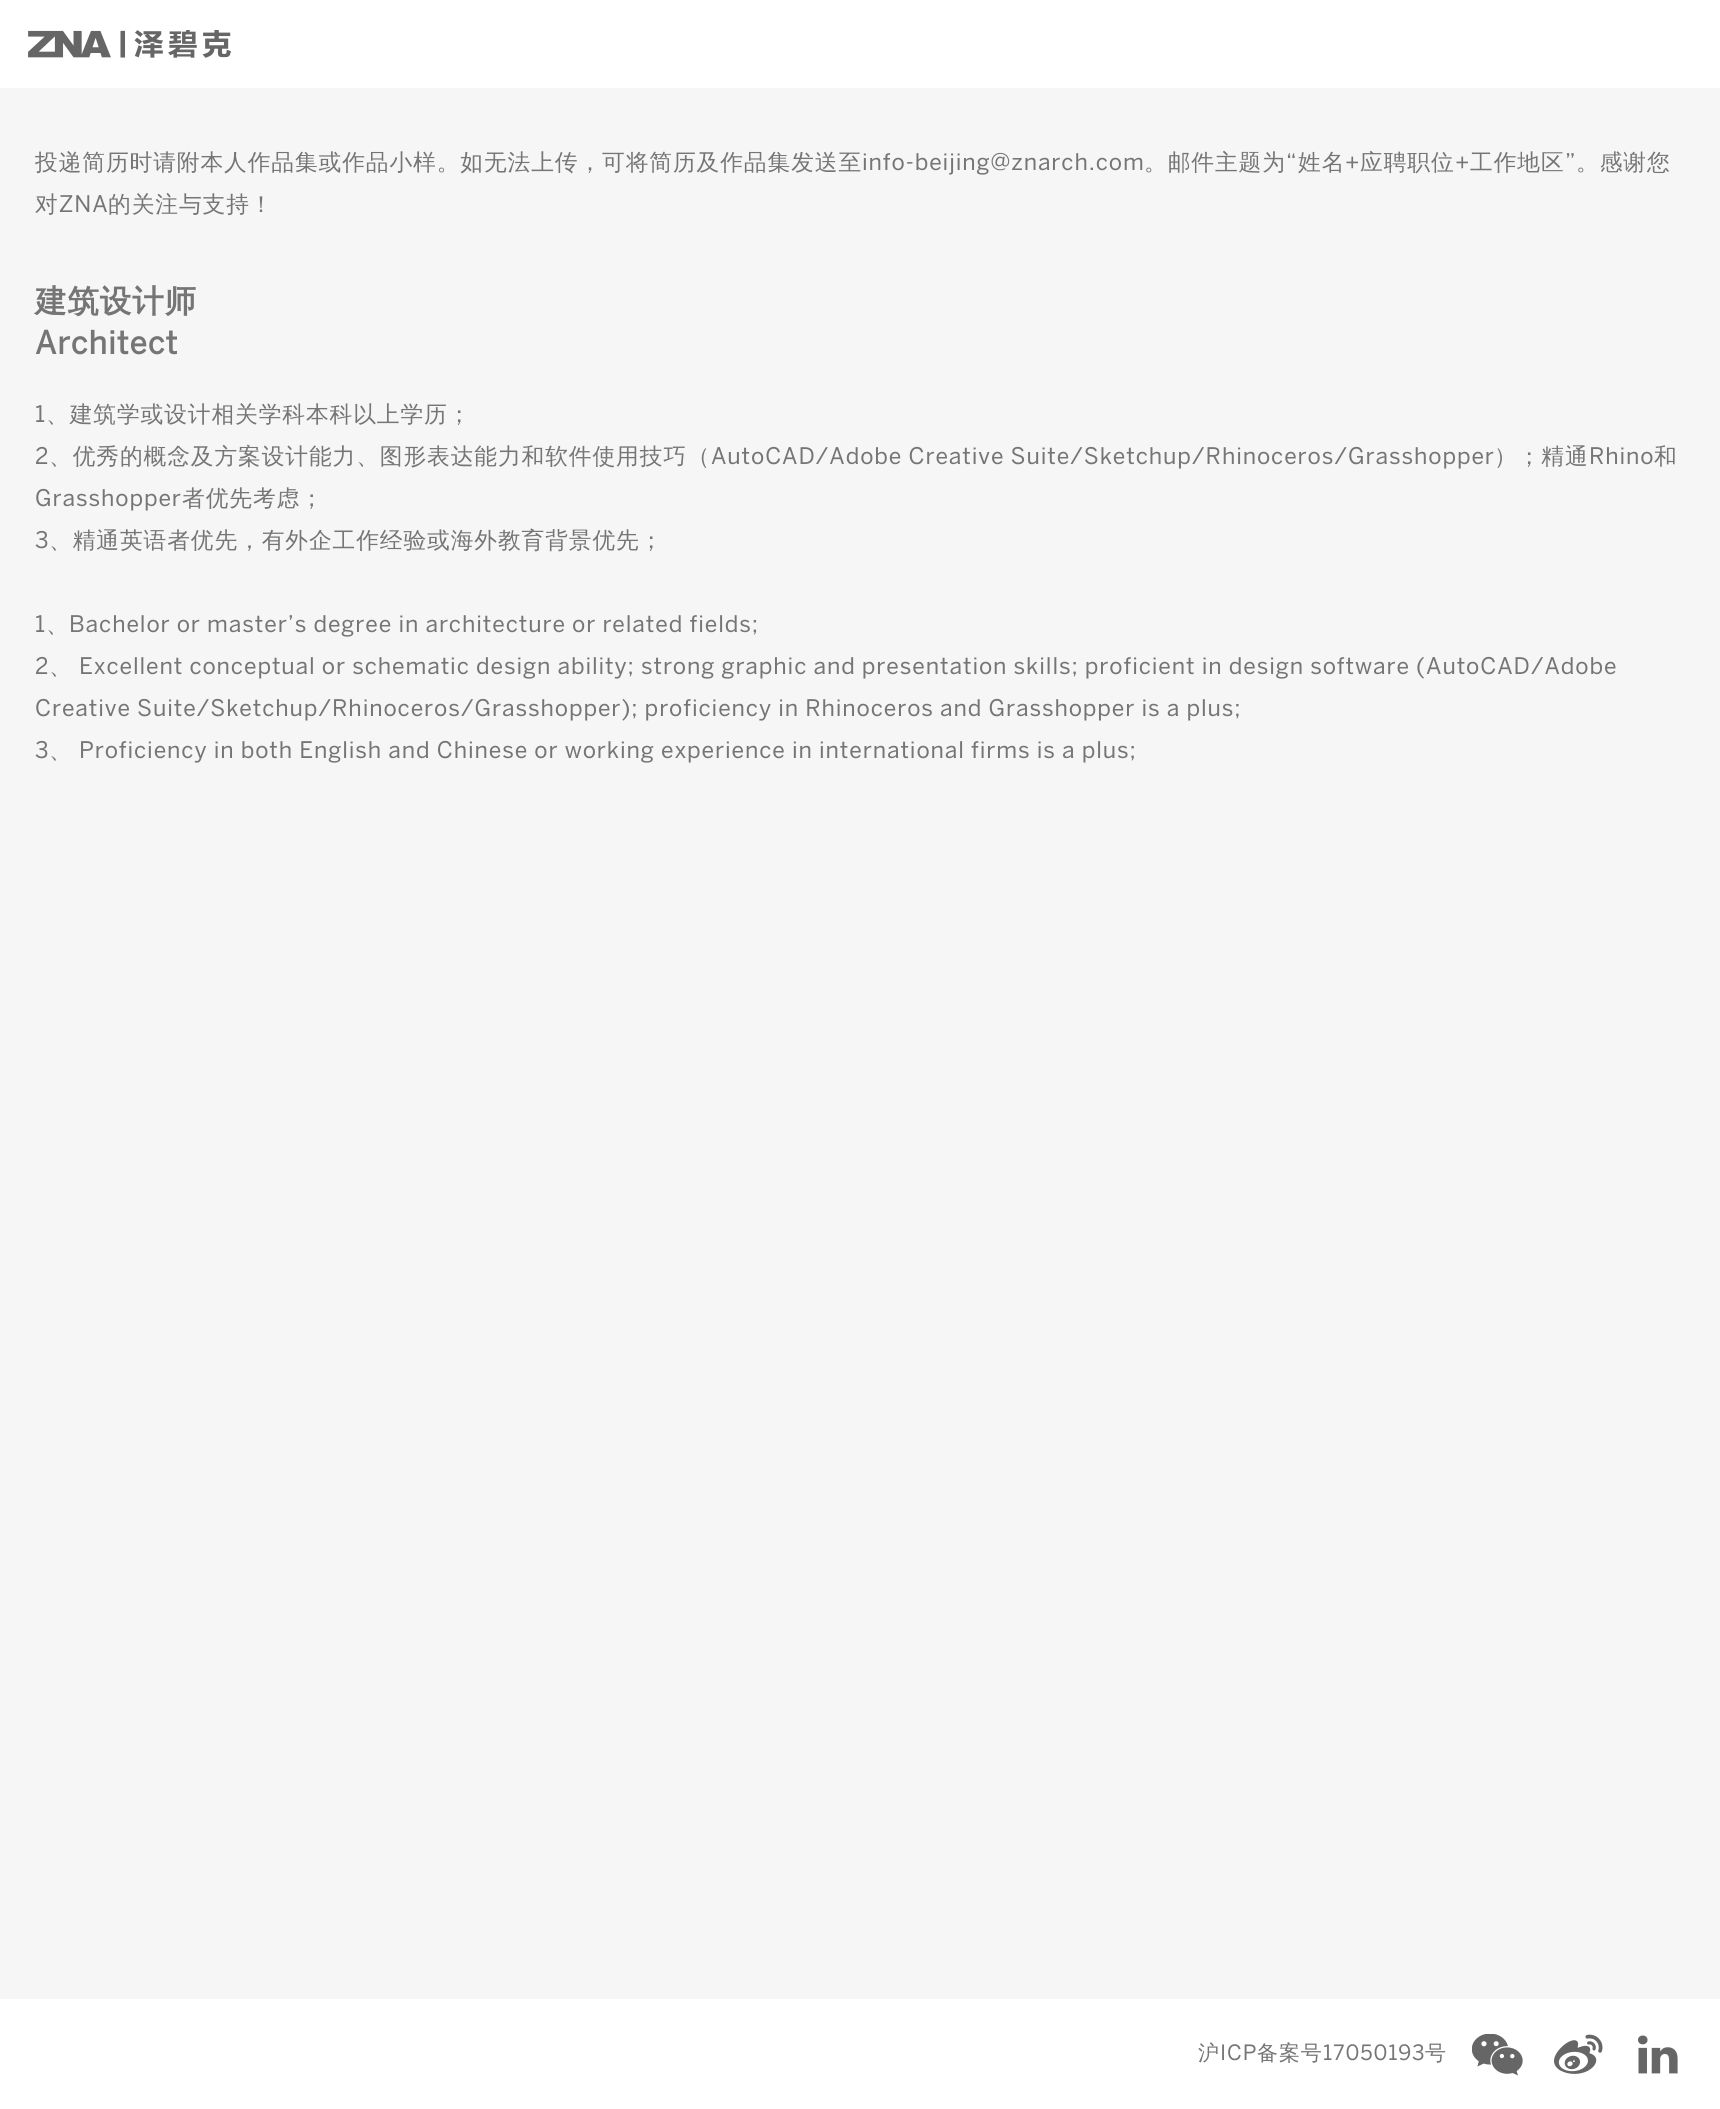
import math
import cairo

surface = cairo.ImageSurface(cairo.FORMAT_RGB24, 1720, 2109)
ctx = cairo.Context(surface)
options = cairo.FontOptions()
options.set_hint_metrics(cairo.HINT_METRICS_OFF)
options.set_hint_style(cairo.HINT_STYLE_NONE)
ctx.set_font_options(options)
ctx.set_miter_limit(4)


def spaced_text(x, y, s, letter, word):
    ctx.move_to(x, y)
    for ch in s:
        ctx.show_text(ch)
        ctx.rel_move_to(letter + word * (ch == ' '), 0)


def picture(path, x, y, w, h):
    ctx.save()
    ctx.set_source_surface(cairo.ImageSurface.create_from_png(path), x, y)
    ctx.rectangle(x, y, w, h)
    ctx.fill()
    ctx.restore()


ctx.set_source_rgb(0.961, 0.961, 0.961)
ctx.paint()
ctx.set_source_rgb(1, 1, 1)
ctx.rectangle(0, 0, 1720, 88)
ctx.fill()
picture("img1.png", 28, 30, 203, 28)
ctx.select_font_face("WenQuanYi Zen Hei Medium")
ctx.set_font_size(22.75)
ctx.set_source_rgb(0.459, 0.459, 0.459)
spaced_text(35, 170, "投递简历时请附本人作品集或作品小样。如无法上传，可将简历及作品集发送至", 0.88, 0)
ctx.select_font_face("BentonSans")
spaced_text(862, 170, "info-beijing@znarch.com", 0.88, 0)
ctx.select_font_face("WenQuanYi Zen Hei Medium")
spaced_text(1144, 170, "。邮件主题为", 0.88, 0)
ctx.select_font_face("BentonSans")
spaced_text(1286, 170, "“", 0.88, 0)
ctx.select_font_face("WenQuanYi Zen Hei Medium")
spaced_text(1298, 170, "姓名", 0.88, 0)
spaced_text(1360, 170, "应聘职位", 0.88, 0)
spaced_text(1470, 170, "工作地区", 0.88, 0)
ctx.select_font_face("BentonSans")
spaced_text(1565, 170, "”", 0.88, 0)
ctx.select_font_face("WenQuanYi Zen Hei Medium")
spaced_text(1576, 170, "。感谢您", 0.88, 0)
ctx.select_font_face("BentonSans")
spaced_text(1345, 170, "+", 0.88, 0)
spaced_text(1455, 170, "+", 0.88, 0)
ctx.select_font_face("WenQuanYi Zen Hei Medium")
spaced_text(35, 212, "对", 0.88, 0)
ctx.select_font_face("BentonSans")
spaced_text(59, 212, "ZNA", 0.88, 0)
ctx.select_font_face("WenQuanYi Zen Hei Medium")
spaced_text(108, 212, "的关注与支持！", 0.88, 0)
ctx.select_font_face("WenQuanYi Zen Hei", cairo.FONT_SLANT_NORMAL, cairo.FONT_WEIGHT_BOLD)
ctx.set_font_size(31.5)
spaced_text(35, 312, "建筑设计师", 0.88, 0)
ctx.select_font_face("BentonSans", cairo.FONT_SLANT_NORMAL, cairo.FONT_WEIGHT_BOLD)
spaced_text(35, 354, "Architect", 0.88, 0)
ctx.select_font_face("BentonSans")
ctx.set_font_size(22.75)
spaced_text(35, 422, "1", 0.88, 0)
ctx.select_font_face("WenQuanYi Zen Hei Medium")
spaced_text(46, 422, "、建筑学或设计相关学科本科以上学历；", 0.88, 0)
ctx.select_font_face("BentonSans")
spaced_text(35, 464, "2", 0.88, 0)
ctx.select_font_face("WenQuanYi Zen Hei Medium")
spaced_text(49, 464, "、优秀的概念及方案设计能力、图形表达能力和软件使用技巧（", 0.88, 0)
ctx.select_font_face("BentonSans")
spaced_text(711, 464, "AutoCAD/Adobe Creative Suite/Sketchup/Rhinoceros/Grasshopper", 0.88, 0)
ctx.select_font_face("WenQuanYi Zen Hei Medium")
spaced_text(1494, 464, "）；精通", 0.88, 0)
ctx.select_font_face("BentonSans")
spaced_text(1589, 464, "Rhino", 0.88, 0)
ctx.select_font_face("WenQuanYi Zen Hei Medium")
spaced_text(1654, 464, "和", 0.88, 0)
ctx.select_font_face("BentonSans")
spaced_text(35, 506, "Grasshopper", 0.88, 0)
ctx.select_font_face("WenQuanYi Zen Hei Medium")
spaced_text(182, 506, "者优先考虑；", 0.88, 0)
ctx.select_font_face("BentonSans")
spaced_text(35, 548, "3", 0.88, 0)
ctx.select_font_face("WenQuanYi Zen Hei Medium")
spaced_text(49, 548, "、精通英语者优先，有外企工作经验或海外教育背景优先；", 0.88, 0)
ctx.select_font_face("BentonSans")
spaced_text(35, 632, "1", 0.88, 0)
ctx.select_font_face("WenQuanYi Zen Hei Medium")
spaced_text(46, 632, "、", 0.88, 0)
ctx.select_font_face("BentonSans")
spaced_text(69, 632, "Bachelor or master’s degree in architecture or related fields;", 0.88, 0)
spaced_text(35, 674, "2", 0.88, 0)
ctx.select_font_face("WenQuanYi Zen Hei Medium")
spaced_text(49, 674, "、", 0.88, 0)
ctx.select_font_face("BentonSans")
spaced_text(79, 674, "Excellent conceptual or schematic design ability; strong graphic and presentation skills; proficient in design software (AutoCAD/Adobe", 0.88, 0)
spaced_text(35, 716, "Creative Suite/Sketchup/Rhinoceros/Grasshopper); proficiency in Rhinoceros and Grasshopper is a plus;", 0.88, 0)
spaced_text(35, 758, "3", 0.88, 0)
ctx.select_font_face("WenQuanYi Zen Hei Medium")
spaced_text(49, 758, "、", 0.88, 0)
ctx.select_font_face("BentonSans")
spaced_text(79, 758, "Proficiency in both English and Chinese or working experience in international firms is a plus;", 0.88, 0)
ctx.set_source_rgb(1, 1, 1)
ctx.rectangle(0, 1999, 1720, 110)
ctx.fill()
ctx.select_font_face("WenQuanYi Zen Hei Medium")
ctx.set_font_size(21)
ctx.set_source_rgb(0.459, 0.459, 0.459)
spaced_text(1198, 2060, "沪", 0.88, 0)
ctx.select_font_face("BentonSans")
spaced_text(1220, 2060, "ICP", 0.88, 0)
ctx.select_font_face("WenQuanYi Zen Hei Medium")
spaced_text(1257, 2060, "备案号", 0.88, 0)
ctx.select_font_face("BentonSans")
spaced_text(1323, 2060, "17050193", 0.88, 0)
ctx.select_font_face("WenQuanYi Zen Hei Medium")
spaced_text(1425, 2060, "号", 0.88, 0)
picture("img2.png", 1472, 2034, 51, 42)
picture("img3.png", 1554, 2034, 49, 40)
picture("img4.png", 1638, 2035, 40, 39)
surface.write_to_png("page.png")
